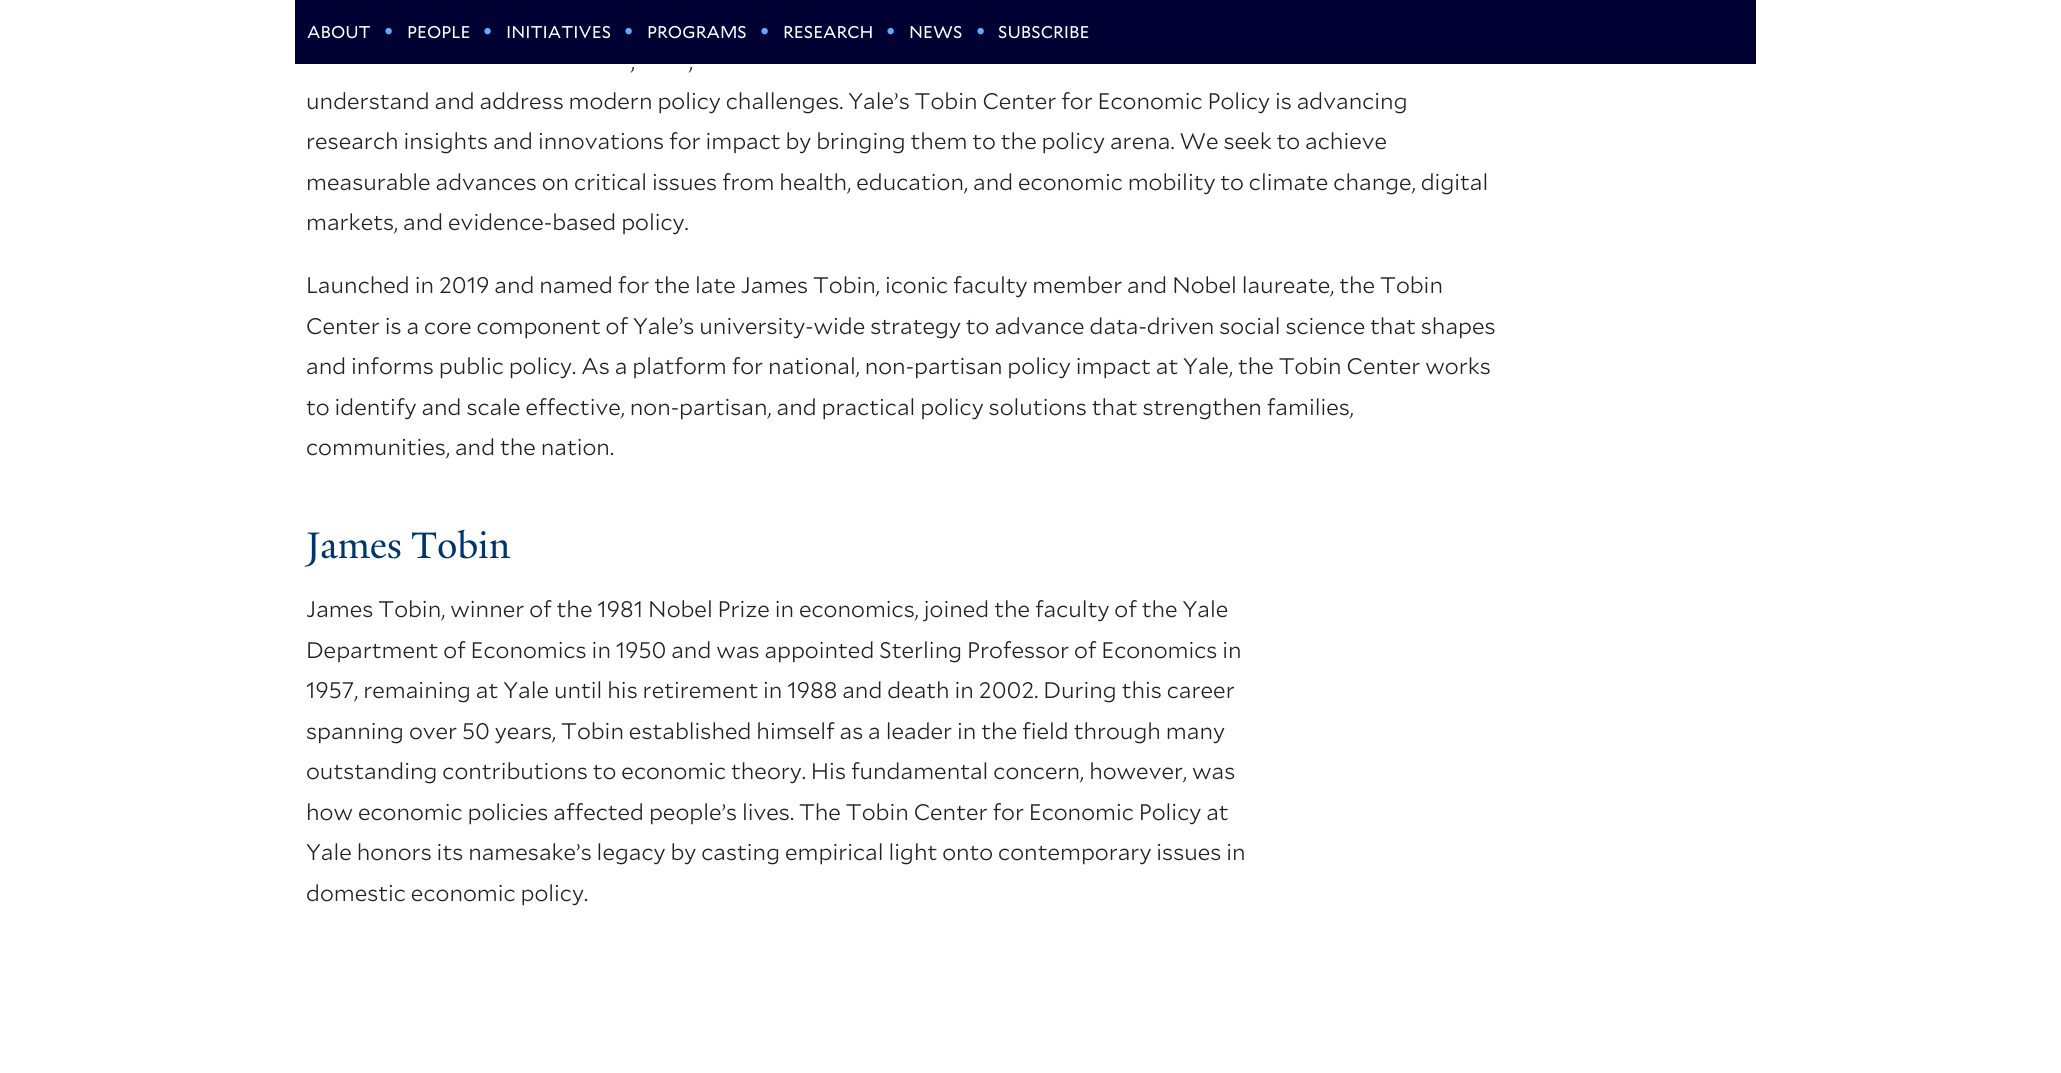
import math
import cairo

surface = cairo.ImageSurface(cairo.FORMAT_RGB24, 2061, 1073)
ctx = cairo.Context(surface)
options = cairo.FontOptions()
options.set_hint_metrics(cairo.HINT_METRICS_OFF)
options.set_hint_style(cairo.HINT_STYLE_NONE)
ctx.set_font_options(options)
ctx.set_miter_limit(4)


ctx.set_source_rgb(1, 1, 1)
ctx.paint()
ctx.set_source_rgb(0, 0, 0.2)
ctx.rectangle(295, 0, 1461, 64)
ctx.fill()
ctx.select_font_face("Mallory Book")
ctx.set_font_size(17)
ctx.set_source_rgb(1, 1, 1)
ctx.move_to(307, 38)
ctx.show_text("ABOUT")
ctx.set_font_size(22.5)
ctx.set_source_rgb(0.388, 0.667, 1)
ctx.move_to(383, 39)
ctx.show_text("•")
ctx.set_font_size(17)
ctx.set_source_rgb(1, 1, 1)
ctx.move_to(407, 38)
ctx.show_text("PEOPLE")
ctx.set_font_size(22.5)
ctx.set_source_rgb(0.388, 0.667, 1)
ctx.move_to(482, 39)
ctx.show_text("•")
ctx.set_font_size(17)
ctx.set_source_rgb(1, 1, 1)
ctx.move_to(506, 38)
ctx.show_text("INITIATIVES")
ctx.set_font_size(22.5)
ctx.set_source_rgb(0.388, 0.667, 1)
ctx.move_to(623, 39)
ctx.show_text("•")
ctx.set_font_size(17)
ctx.set_source_rgb(1, 1, 1)
ctx.move_to(647, 38)
ctx.show_text("PROGRAMS")
ctx.set_font_size(22.5)
ctx.set_source_rgb(0.388, 0.667, 1)
ctx.move_to(759, 39)
ctx.show_text("•")
ctx.set_font_size(17)
ctx.set_source_rgb(1, 1, 1)
ctx.move_to(783, 38)
ctx.show_text("RESEARCH")
ctx.set_font_size(22.5)
ctx.set_source_rgb(0.388, 0.667, 1)
ctx.move_to(885, 39)
ctx.show_text("•")
ctx.set_font_size(17)
ctx.set_source_rgb(1, 1, 1)
ctx.move_to(909, 38)
ctx.show_text("NEWS")
ctx.set_font_size(22.5)
ctx.set_source_rgb(0.388, 0.667, 1)
ctx.move_to(975, 39)
ctx.show_text("•")
ctx.set_font_size(17)
ctx.set_source_rgb(1, 1, 1)
ctx.move_to(998, 38)
ctx.show_text("SUBSCRIBE")
ctx.select_font_face("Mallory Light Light")
ctx.set_font_size(22.5)
ctx.set_source_rgb(0.133, 0.133, 0.133)
ctx.move_to(631, 69)
ctx.show_text(",")
ctx.move_to(689, 69)
ctx.show_text(",")
ctx.move_to(306, 109)
ctx.show_text("understand and address modern policy challenges. Yale’s Tobin Center for Economic Policy is advancing")
ctx.move_to(306, 149)
ctx.show_text("research insights and innovations for impact by bringing them to the policy arena. We seek to achieve")
ctx.move_to(306, 190)
ctx.show_text("measurable advances on critical issues from health, education, and economic mobility to climate change, digital")
ctx.move_to(306, 230)
ctx.show_text("markets, and evidence-based policy.")
ctx.move_to(306, 293)
ctx.show_text("Launched in 2019 and named for the late James Tobin, iconic faculty member and Nobel laureate, the Tobin")
ctx.move_to(306, 334)
ctx.show_text("Center is a core component of Yale’s university-wide strategy to advance data-driven social science that shapes")
ctx.move_to(306, 374)
ctx.show_text("and informs public policy. As a platform for national, non-partisan policy impact at Yale, the Tobin Center works")
ctx.move_to(306, 415)
ctx.show_text("to identify and scale effective, non-partisan, and practical policy solutions that strengthen families,")
ctx.move_to(306, 455)
ctx.show_text("communities, and the nation.")
ctx.select_font_face("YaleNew")
ctx.set_font_size(40)
ctx.set_source_rgb(0, 0.208, 0.42)
ctx.move_to(306, 558)
ctx.show_text("James Tobin")
ctx.select_font_face("Mallory Light Light")
ctx.set_font_size(22.5)
ctx.set_source_rgb(0.133, 0.133, 0.133)
ctx.move_to(306, 617)
ctx.show_text("James Tobin, winner of the 1981 Nobel Prize in economics, joined the faculty of the Yale")
ctx.move_to(306, 658)
ctx.show_text("Department of Economics in 1950 and was appointed Sterling Professor of Economics in")
ctx.move_to(306, 698)
ctx.show_text("1957, remaining at Yale until his retirement in 1988 and death in 2002. During this career")
ctx.move_to(306, 739)
ctx.show_text("spanning over 50 years, Tobin established himself as a leader in the field through many")
ctx.move_to(306, 779)
ctx.show_text("outstanding contributions to economic theory. His fundamental concern, however, was")
ctx.move_to(306, 820)
ctx.show_text("how economic policies affected people’s lives. The Tobin Center for Economic Policy at")
ctx.move_to(306, 860)
ctx.show_text("Yale honors its namesake’s legacy by casting empirical light onto contemporary issues in")
ctx.move_to(306, 901)
ctx.show_text("domestic economic policy.")
surface.write_to_png("page.png")
